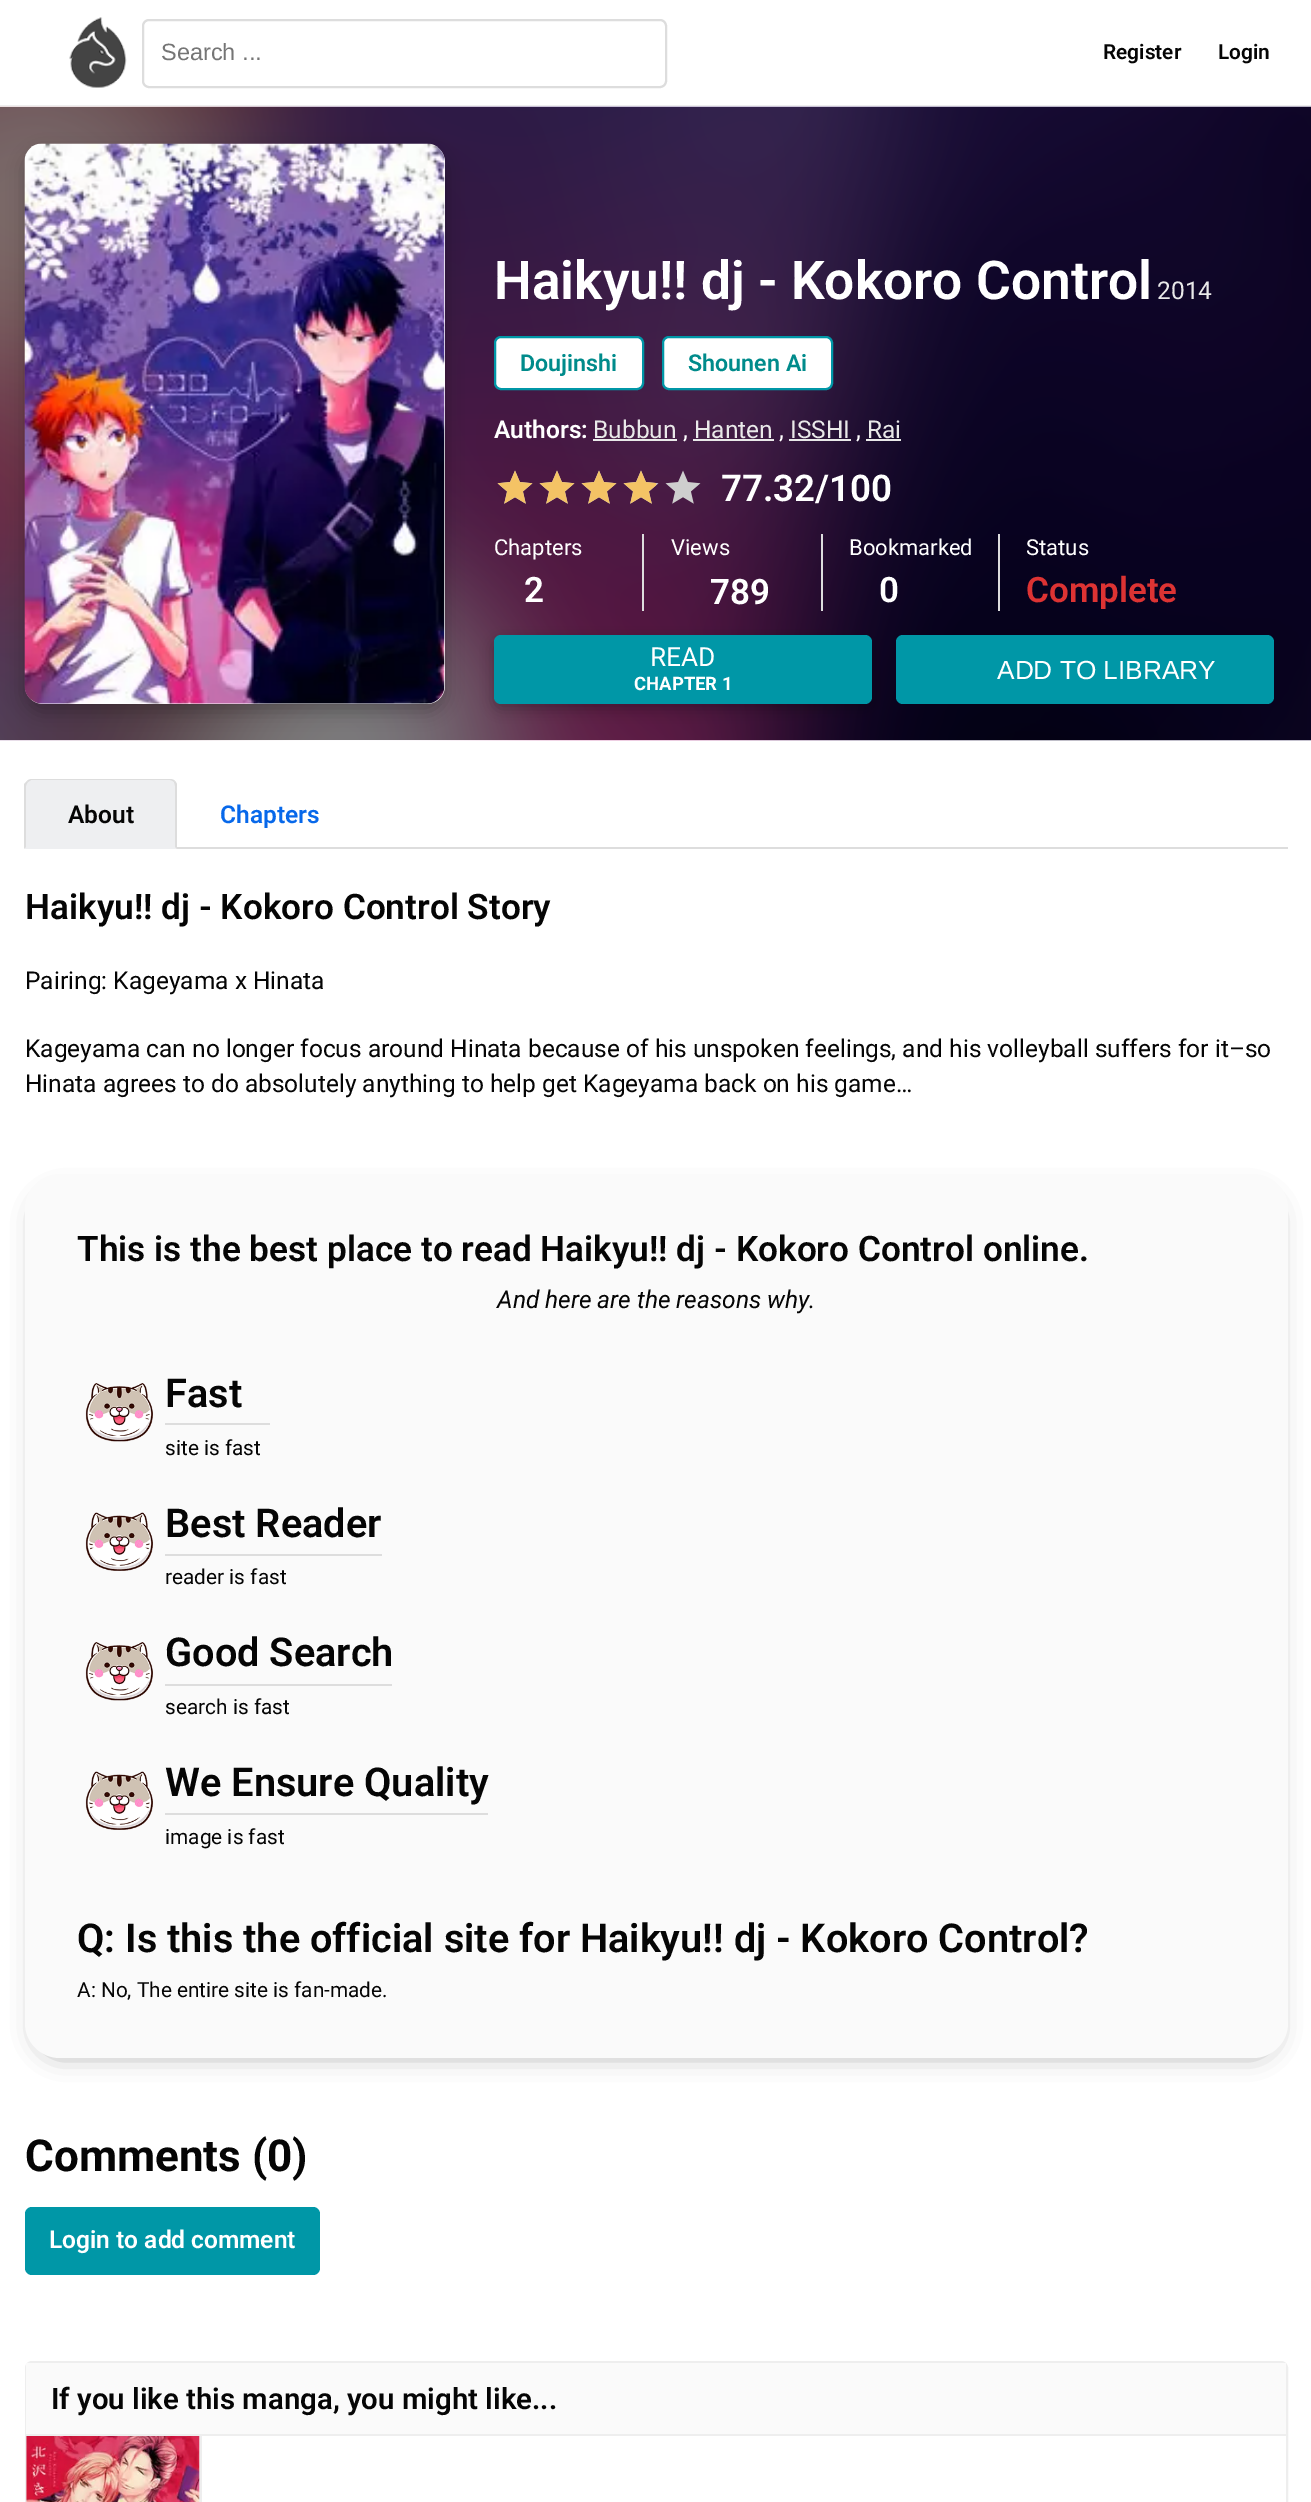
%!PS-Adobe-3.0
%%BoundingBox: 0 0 1311 2502
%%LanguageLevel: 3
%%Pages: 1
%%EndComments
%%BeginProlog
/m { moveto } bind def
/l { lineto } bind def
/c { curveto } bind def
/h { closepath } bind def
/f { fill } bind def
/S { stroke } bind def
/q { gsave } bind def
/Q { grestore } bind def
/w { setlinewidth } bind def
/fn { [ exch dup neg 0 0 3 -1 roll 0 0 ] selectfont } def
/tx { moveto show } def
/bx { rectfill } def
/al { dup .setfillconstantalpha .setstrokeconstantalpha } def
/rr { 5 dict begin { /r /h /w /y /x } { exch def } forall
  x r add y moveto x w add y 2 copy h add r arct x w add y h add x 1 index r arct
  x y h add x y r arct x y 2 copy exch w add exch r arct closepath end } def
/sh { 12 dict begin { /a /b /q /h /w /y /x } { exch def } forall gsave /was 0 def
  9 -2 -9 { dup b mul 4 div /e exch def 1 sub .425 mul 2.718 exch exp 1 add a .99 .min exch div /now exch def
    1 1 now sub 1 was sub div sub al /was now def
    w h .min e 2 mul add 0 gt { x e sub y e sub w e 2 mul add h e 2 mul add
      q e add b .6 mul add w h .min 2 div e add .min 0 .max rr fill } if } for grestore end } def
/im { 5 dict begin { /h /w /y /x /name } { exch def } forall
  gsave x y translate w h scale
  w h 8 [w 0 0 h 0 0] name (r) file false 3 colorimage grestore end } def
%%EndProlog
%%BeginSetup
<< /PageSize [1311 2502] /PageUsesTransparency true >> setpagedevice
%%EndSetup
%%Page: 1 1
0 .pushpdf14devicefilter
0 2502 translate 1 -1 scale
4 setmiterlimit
1 setgray
0 0 1311 2502 bx
0.933 setgray
0 105 1311 2 bx
(image0.raw) 69 17 58 71 im
0.867 setgray
2 w
143 20 523 67 6 rr S
/LiberationSans-Regular 23.5 fn
0.459 setgray
(Search ...) 161 60 tx
/Roboto-SemiBold 20.8 fn
0.02 setgray
(Register) 1103 59 tx
(Login) 1218 59 tx
(image1.raw) 0 106 1311 635 im
0 setgray
25 152 420 560 18 9 0.25 sh
1 setgray
25 144 420 560 18 rr f
(image2.raw) 24 143 421 561 im
/Roboto-SemiBold 53.4 fn
(Haikyu!! dj - Kokoro Control) 494 299 tx
/Roboto-Regular 24.5 fn
0.914 setgray
(2014) 1157 299 tx
1 setgray
495 337 148 52 6 rr q f Q
0 0.592 0.655 setrgbcolor
S
/Roboto-SemiBold 23.25 fn
0 0.545 0.545 setrgbcolor
(Doujinshi) 520 371 tx
1 setgray
663 337 169 52 6 rr q f Q
0 0.592 0.655 setrgbcolor
S
0 0.545 0.545 setrgbcolor
(Shounen Ai) 688 371 tx
/Roboto-SemiBold 24.5 fn
1 setgray
(Authors:) 494 438 tx
/Roboto-Regular 24.5 fn
0.914 setgray
(Bubbun) 593 438 tx
593 439 84 2 bx
1 setgray
(,) 683 438 tx
0.914 setgray
(Hanten) 694 438 tx
693 439 81 2 bx
1 setgray
(,) 779 438 tx
0.914 setgray
(ISSHI) 790 438 tx
789 439 62 2 bx
1 setgray
(,) 856 438 tx
0.914 setgray
(Rai) 867 438 tx
866 439 35 2 bx
(image3.raw) 497 470 204 34 im
(image4.raw) 497 470 160 34 im
/Roboto-SemiBold 36.75 fn
1 setgray
(77.32/100) 721 501 tx
0.867 setgray
642 534 2 77 bx
/Roboto-Regular 22 fn
1 setgray
(Chapters) 494 555 tx
/Roboto-SemiBold 35 fn
(2) 524 602 tx
0.867 setgray
821 534 2 77 bx
/Roboto-Regular 22 fn
1 setgray
(Views) 671 555 tx
/Roboto-SemiBold 35 fn
(789) 710 604 tx
0.867 setgray
998 534 2 77 bx
/Roboto-Regular 22 fn
1 setgray
(Bookmarked) 849 555 tx
/Roboto-SemiBold 35 fn
(0) 879 602 tx
/Roboto-Regular 22 fn
(Status) 1026 555 tx
/Roboto-SemiBold 35 fn
0.867 0.2 0.2 setrgbcolor
(Complete) 1026 602 tx
0 setgray
494 641 378 68 7 7 0.25 sh
0 0.592 0.655 setrgbcolor
494 635 378 69 7 rr f
/Roboto-Regular 26.25 fn
1 setgray
(READ) 650 666 tx
/Roboto-Bold 18.5 fn
(CHAPTER 1) 634 690 tx
0 0.592 0.655 setrgbcolor
896 635 378 69 7 rr f
/LiberationSans-Regular 26.25 fn
1 setgray
(ADD TO LIBRARY) 997 679 tx
0.867 setgray
177 847 1111 2 bx
0.933 0.937 0.945 setrgbcolor
32 779 m 170 779 l 174 779 177 782 177 786 c 177 849 l 25 849 l 25 786 l 25 782 28 779 32 779 c h f
0.867 setgray
32 779 m 30 779 28 780 27 781 c 28 782 l 31 780 l 170 780 l 171 780 173 781 174 782 c 175 781 l 174 780 172 779 170 779 c h f
175 781 m 177 784 l 177 849 l 175 847 l 175 786 l 175 784 174 783 174 782 c h f
24 849 m 26 847 l 26 786 l 26 785 27 783 28 782 c 27 781 l 24 784 l h f
/Roboto-SemiBold 24.5 fn
0.02 setgray
(About) 68 823 tx
0.027 0.408 0.918 setrgbcolor
(Chapters) 220 823 tx
/Roboto-SemiBold 35.2 fn
0.02 setgray
(Haikyu!! dj - Kokoro Control Story) 25 919 tx
/Roboto-Regular 24.5 fn
(Pairing: Kageyama x Hinata) 25 989 tx
(Kageyama can no longer focus around Hinata because of his unspoken feelings, and his volleyball suffers for it–so) 25 1057 tx
(Hinata agrees to do absolutely anything to help get Kageyama back on his game…) 25 1092 tx
0 setgray
39 1197 1235 856 21 13 0.4 sh
0.98 setgray
25 1174 1263 884 35 rr f
/Roboto-SemiBold 35.2 fn
0.02 setgray
(This is the best place to read Haikyu!! dj - Kokoro Control online.) 77 1261 tx
/Roboto-Italic 24.5 fn
(And here are the reasons why.) 497 1308 tx
(image5.raw) 85 1383 68 59 im
0.867 setgray
165 1423 105 2 bx
/Roboto-SemiBold 39.75 fn
0.02 setgray
(Fast) 165 1407 tx
/Roboto-Regular 20.8 fn
(site is fast) 165 1455 tx
(image6.raw) 85 1512 68 59 im
0.867 setgray
165 1554 217 2 bx
/Roboto-SemiBold 39.75 fn
0.02 setgray
(Best Reader) 165 1537 tx
/Roboto-Regular 20.8 fn
(reader is fast) 165 1584 tx
(image7.raw) 85 1642 68 59 im
0.867 setgray
165 1684 227 2 bx
/Roboto-SemiBold 39.75 fn
0.02 setgray
(Good Search) 165 1666 tx
/Roboto-Regular 20.8 fn
(search is fast) 165 1714 tx
(image8.raw) 85 1771 68 59 im
0.867 setgray
165 1813 323 2 bx
/Roboto-SemiBold 39.75 fn
0.02 setgray
(We Ensure Quality) 165 1796 tx
/Roboto-Regular 20.8 fn
(image is fast) 165 1844 tx
/Roboto-SemiBold 39.75 fn
(Q: Is this the official site for Haikyu!! dj - Kokoro Control?) 77 1952 tx
/Roboto-Regular 20.8 fn
(A: No, The entire site is fan-made.) 77 1997 tx
/Roboto-Bold 44 fn
(Comments \(0\)) 25 2171 tx
0 0.592 0.655 setrgbcolor
25 2207 295 68 7 rr f
/Roboto-SemiBold 24.5 fn
1 setgray
(Login to add comment) 49 2248 tx
0.933 setgray
26 2362 1261 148 6 rr S
0.98 setgray
26 2363 1260 71 bx
0.933 setgray
26 2434 1260 2 bx
/Roboto-SemiBold 29.4 fn
0.02 setgray
(If you like this manga, you might like...) 51 2409 tx
0.933 setgray
27 2436 175 66 bx
(image9.raw) 26 2436 174 66 im
.poppdf14devicefilter showpage
%%EOF
